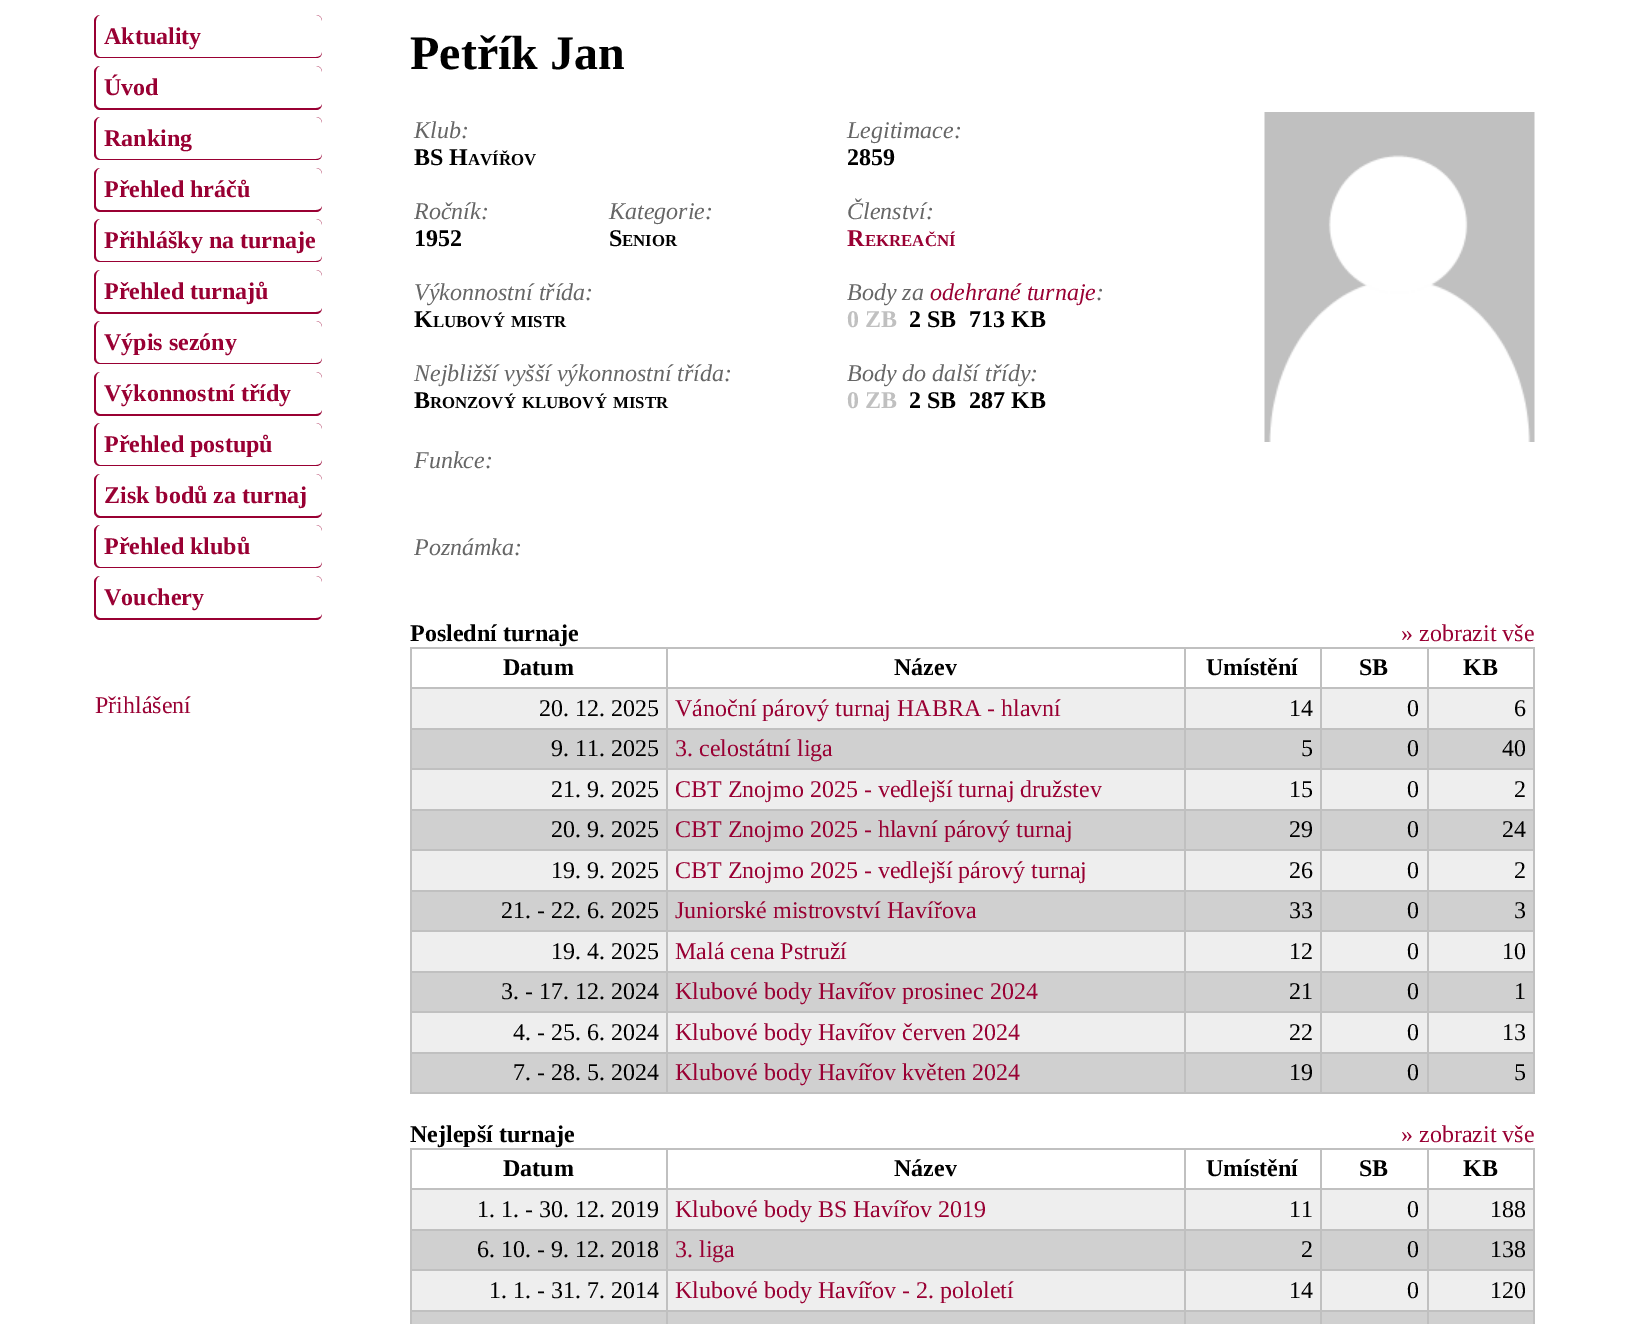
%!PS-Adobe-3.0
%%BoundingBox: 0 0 1629 1324
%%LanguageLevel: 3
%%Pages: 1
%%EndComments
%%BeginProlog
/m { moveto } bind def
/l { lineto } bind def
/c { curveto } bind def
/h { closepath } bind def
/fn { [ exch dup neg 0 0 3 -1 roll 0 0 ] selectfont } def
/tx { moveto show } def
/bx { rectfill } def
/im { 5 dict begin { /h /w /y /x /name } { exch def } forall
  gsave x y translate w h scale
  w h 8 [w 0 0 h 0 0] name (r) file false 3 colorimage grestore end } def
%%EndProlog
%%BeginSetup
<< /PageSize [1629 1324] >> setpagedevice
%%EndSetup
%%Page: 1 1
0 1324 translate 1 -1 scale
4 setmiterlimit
1 setgray
0 0 1629 1324 bx
0.6 0 0.2 setrgbcolor
100 15 m 316 15 l 320 15 322 18 322 21 c 322 52 l 322 56 320 58 316 58 c 100 58 l 97 58 94 56 94 52 c 94 21 l 94 18 97 15 100 15 c h 100 15 m 316 15 l 320 15 322 18 322 21 c 322 52 l 322 55 320 57 316 57 c 100 57 l 98 57 96 55 96 52 c 96 21 l 96 18 98 15 100 15 c h eofill
/LiberationSerif-Bold 24 fn
(Aktuality) 104 44 tx
100 66 m 316 66 l 320 66 322 69 322 72 c 322 104 l 322 107 320 110 316 110 c 100 110 l 97 110 94 107 94 104 c 94 72 l 94 69 97 66 100 66 c h 100 66 m 316 66 l 320 66 322 69 322 72 c 322 104 l 322 106 320 108 316 108 c 100 108 l 98 108 96 106 96 104 c 96 72 l 96 69 98 66 100 66 c h eofill
(Úvod) 104 95 tx
100 117 m 316 117 l 320 117 322 120 322 123 c 322 154 l 322 158 320 160 316 160 c 100 160 l 97 160 94 158 94 154 c 94 123 l 94 120 97 117 100 117 c h 100 117 m 316 117 l 320 117 322 120 322 123 c 322 154 l 322 157 320 159 316 159 c 100 159 l 98 159 96 157 96 154 c 96 123 l 96 120 98 117 100 117 c h eofill
(Ranking) 104 146 tx
100 168 m 316 168 l 320 168 322 171 322 174 c 322 206 l 322 209 320 212 316 212 c 100 212 l 97 212 94 209 94 206 c 94 174 l 94 171 97 168 100 168 c h 100 168 m 316 168 l 320 168 322 171 322 174 c 322 206 l 322 208 320 210 316 210 c 100 210 l 98 210 96 208 96 206 c 96 174 l 96 171 98 168 100 168 c h eofill
(Přehled hráčů) 104 197 tx
100 219 m 316 219 l 320 219 322 222 322 225 c 322 256 l 322 260 320 262 316 262 c 100 262 l 97 262 94 260 94 256 c 94 225 l 94 222 97 219 100 219 c h 100 219 m 316 219 l 320 219 322 222 322 225 c 322 256 l 322 259 320 261 316 261 c 100 261 l 98 261 96 259 96 256 c 96 225 l 96 222 98 219 100 219 c h eofill
(Přihlášky na turnaje) 104 248 tx
100 270 m 316 270 l 320 270 322 273 322 276 c 322 308 l 322 311 320 314 316 314 c 100 314 l 97 314 94 311 94 308 c 94 276 l 94 273 97 270 100 270 c h 100 270 m 316 270 l 320 270 322 273 322 276 c 322 308 l 322 310 320 312 316 312 c 100 312 l 98 312 96 310 96 308 c 96 276 l 96 273 98 270 100 270 c h eofill
(Přehled turnajů) 104 299 tx
100 321 m 316 321 l 320 321 322 324 322 327 c 322 358 l 322 362 320 364 316 364 c 100 364 l 97 364 94 362 94 358 c 94 327 l 94 324 97 321 100 321 c h 100 321 m 316 321 l 320 321 322 324 322 327 c 322 358 l 322 361 320 363 316 363 c 100 363 l 98 363 96 361 96 358 c 96 327 l 96 324 98 321 100 321 c h eofill
(Výpis sezóny) 104 350 tx
100 372 m 316 372 l 320 372 322 375 322 378 c 322 410 l 322 413 320 416 316 416 c 100 416 l 97 416 94 413 94 410 c 94 378 l 94 375 97 372 100 372 c h 100 372 m 316 372 l 320 372 322 375 322 378 c 322 410 l 322 412 320 414 316 414 c 100 414 l 98 414 96 412 96 410 c 96 378 l 96 375 98 372 100 372 c h eofill
(Výkonnostní třídy) 104 401 tx
100 423 m 316 423 l 320 423 322 426 322 429 c 322 460 l 322 464 320 466 316 466 c 100 466 l 97 466 94 464 94 460 c 94 429 l 94 426 97 423 100 423 c h 100 423 m 316 423 l 320 423 322 426 322 429 c 322 460 l 322 463 320 465 316 465 c 100 465 l 98 465 96 463 96 460 c 96 429 l 96 426 98 423 100 423 c h eofill
(Přehled postupů) 104 452 tx
100 474 m 316 474 l 320 474 322 477 322 480 c 322 512 l 322 515 320 518 316 518 c 100 518 l 97 518 94 515 94 512 c 94 480 l 94 477 97 474 100 474 c h 100 474 m 316 474 l 320 474 322 477 322 480 c 322 512 l 322 514 320 516 316 516 c 100 516 l 98 516 96 514 96 512 c 96 480 l 96 477 98 474 100 474 c h eofill
(Zisk bodů za turnaj) 104 503 tx
100 525 m 316 525 l 320 525 322 528 322 531 c 322 562 l 322 566 320 568 316 568 c 100 568 l 97 568 94 566 94 562 c 94 531 l 94 528 97 525 100 525 c h 100 525 m 316 525 l 320 525 322 528 322 531 c 322 562 l 322 565 320 567 316 567 c 100 567 l 98 567 96 565 96 562 c 96 531 l 96 528 98 525 100 525 c h eofill
(Přehled klubů) 104 554 tx
100 576 m 316 576 l 320 576 322 579 322 582 c 322 614 l 322 617 320 620 316 620 c 100 620 l 97 620 94 617 94 614 c 94 582 l 94 579 97 576 100 576 c h 100 576 m 316 576 l 320 576 322 579 322 582 c 322 614 l 322 616 320 618 316 618 c 100 618 l 98 618 96 616 96 614 c 96 582 l 96 579 98 576 100 576 c h eofill
(Vouchery) 104 605 tx
/LiberationSerif-Regular 24 fn
(Přihlášení) 95 713 tx
/LiberationSerif-Bold 48 fn
0 setgray
(Petřík Jan) 410 69 tx
/LiberationSerif-Italic 24 fn
0.4 setgray
(Klub:) 414 138 tx
/LiberationSerif-Bold 24 fn
0 setgray
(BS H) 414 165 tx
/LiberationSerif-Bold 16.75 fn
(AVÍŘOV) 468 165 tx
/LiberationSerif-Italic 24 fn
0.4 setgray
(Ročník:) 414 219 tx
/LiberationSerif-Bold 24 fn
0 setgray
(1952) 414 246 tx
/LiberationSerif-Italic 24 fn
0.4 setgray
(Kategorie:) 609 219 tx
/LiberationSerif-Bold 24 fn
0 setgray
(S) 609 246 tx
/LiberationSerif-Bold 16.75 fn
(ENIOR) 622 246 tx
/LiberationSerif-Italic 24 fn
0.4 setgray
(Výkonnostní třída:) 414 300 tx
/LiberationSerif-Bold 24 fn
0 setgray
(K) 414 327 tx
/LiberationSerif-Bold 16.75 fn
(LUBOVÝ) 433 327 tx
(MISTR) 511 327 tx
/LiberationSerif-Italic 24 fn
0.4 setgray
(Nejbližší vyšší výkonnostní třída:) 414 381 tx
/LiberationSerif-Bold 24 fn
0 setgray
(B) 414 408 tx
/LiberationSerif-Bold 16.75 fn
(RONZOVÝ) 430 408 tx
(KLUBOVÝ) 522 408 tx
(MISTR) 613 408 tx
/LiberationSerif-Italic 24 fn
0.4 setgray
(Legitimace:) 847 138 tx
/LiberationSerif-Bold 24 fn
0 setgray
(2859) 847 165 tx
/LiberationSerif-Italic 24 fn
0.4 setgray
(Členství:) 847 219 tx
/LiberationSerif-Bold 24 fn
0.6 0 0.2 setrgbcolor
(R) 847 246 tx
/LiberationSerif-Bold 16.75 fn
(EKREAČNÍ) 865 246 tx
/LiberationSerif-Italic 24 fn
0.4 setgray
(Body za) 847 300 tx
0.6 0 0.2 setrgbcolor
(odehrané turnaje) 930 300 tx
0.4 setgray
(:) 1096 300 tx
/LiberationSerif-Bold 24 fn
0.753 setgray
(0 ZB) 847 327 tx
0 setgray
(2 SB) 909 327 tx
(713 KB) 969 327 tx
/LiberationSerif-Italic 24 fn
0.4 setgray
(Body do další třídy:) 847 381 tx
/LiberationSerif-Bold 24 fn
0.753 setgray
(0 ZB) 847 408 tx
0 setgray
(2 SB) 909 408 tx
(287 KB) 969 408 tx
/LiberationSerif-Italic 24 fn
0.4 setgray
(Funkce:) 414 468 tx
(Poznámka:) 414 555 tx
(image0.raw) 1264 112 271 330 im
/LiberationSerif-Bold 24 fn
0 setgray
(Poslední turnaje) 410 641 tx
/LiberationSerif-Regular 24 fn
0.6 0 0.2 setrgbcolor
(» zobrazit vše) 1401 641 tx
0.753 setgray
410 647 1125 2 bx
1533 647 2 447 bx
410 1092 1125 2 bx
410 647 2 447 bx
/LiberationSerif-Bold 24 fn
0 setgray
(Datum) 503 675 tx
0.753 setgray
1427 687 108 2 bx
0.933 setgray
412 689 1121 39 bx
0.753 setgray
1427 728 108 2 bx
0.816 setgray
412 730 1121 38 bx
0.753 setgray
1427 768 108 2 bx
0.933 setgray
412 770 1121 39 bx
0.753 setgray
1427 809 108 2 bx
0.816 setgray
412 811 1121 38 bx
0.753 setgray
1427 849 108 2 bx
0.933 setgray
412 851 1121 39 bx
0.753 setgray
1427 890 108 2 bx
0.816 setgray
412 892 1121 38 bx
0.753 setgray
1427 930 108 2 bx
0.933 setgray
412 932 1121 39 bx
0.753 setgray
1427 971 108 2 bx
0.816 setgray
412 973 1121 38 bx
0.753 setgray
1427 1011 108 2 bx
0.933 setgray
412 1013 1121 39 bx
0.753 setgray
1427 1052 108 2 bx
0.816 setgray
412 1054 1121 38 bx
0.753 setgray
1427 1052 2 42 bx
1320 1052 108 2 bx
1427 1011 2 42 bx
1320 1011 108 2 bx
1427 971 2 42 bx
1320 971 108 2 bx
1427 930 2 42 bx
1320 930 108 2 bx
1427 890 2 42 bx
1320 890 108 2 bx
1427 849 2 42 bx
1320 849 108 2 bx
1427 809 2 42 bx
1320 809 108 2 bx
1427 768 2 42 bx
1320 768 108 2 bx
1427 728 2 42 bx
1320 728 108 2 bx
1427 687 2 42 bx
1320 687 108 2 bx
1320 1052 2 42 bx
1184 1052 138 2 bx
1320 1011 2 42 bx
1184 1011 138 2 bx
1320 971 2 42 bx
1184 971 138 2 bx
1320 930 2 42 bx
1184 930 138 2 bx
1320 890 2 42 bx
1184 890 138 2 bx
1320 849 2 42 bx
1184 849 138 2 bx
1320 809 2 42 bx
1184 809 138 2 bx
1320 768 2 42 bx
1184 768 138 2 bx
1320 728 2 42 bx
1184 728 138 2 bx
1320 687 2 42 bx
1184 687 138 2 bx
1184 1052 2 42 bx
666 1052 519 2 bx
1184 1011 2 42 bx
666 1011 519 2 bx
1184 971 2 42 bx
666 971 519 2 bx
1184 930 2 42 bx
666 930 519 2 bx
1184 890 2 42 bx
666 890 519 2 bx
1184 849 2 42 bx
666 849 519 2 bx
1184 809 2 42 bx
666 809 519 2 bx
1184 768 2 42 bx
666 768 519 2 bx
1184 728 2 42 bx
666 728 519 2 bx
1184 687 2 42 bx
666 687 519 2 bx
666 1052 2 42 bx
410 1052 258 2 bx
666 1011 2 42 bx
410 1011 258 2 bx
666 971 2 42 bx
410 971 258 2 bx
666 930 2 42 bx
410 930 258 2 bx
666 890 2 42 bx
410 890 258 2 bx
666 849 2 42 bx
410 849 258 2 bx
666 809 2 42 bx
410 809 258 2 bx
666 768 2 42 bx
410 768 258 2 bx
666 728 2 42 bx
410 728 258 2 bx
666 687 2 42 bx
410 687 258 2 bx
666 647 2 42 bx
0 setgray
(Název) 894 675 tx
0.753 setgray
1184 647 2 42 bx
0 setgray
(Umístění) 1206 675 tx
0.753 setgray
1320 647 2 42 bx
0 setgray
(SB) 1359 675 tx
0.753 setgray
1427 647 2 42 bx
0 setgray
(KB) 1463 675 tx
/LiberationSerif-Regular 24 fn
(20. 12. 2025) 539 716 tx
0.6 0 0.2 setrgbcolor
(Vánoční párový turnaj HABRA - hlavní) 675 716 tx
0 setgray
(14) 1289 716 tx
(0) 1407 716 tx
(6) 1514 716 tx
(9. 11. 2025) 551 756 tx
0.6 0 0.2 setrgbcolor
(3. celostátní liga) 675 756 tx
0 setgray
(5) 1301 756 tx
(0) 1407 756 tx
(40) 1502 756 tx
(21. 9. 2025) 551 797 tx
0.6 0 0.2 setrgbcolor
(CBT Znojmo 2025 - vedlejší turnaj družstev) 675 797 tx
0 setgray
(15) 1289 797 tx
(0) 1407 797 tx
(2) 1514 797 tx
(20. 9. 2025) 551 837 tx
0.6 0 0.2 setrgbcolor
(CBT Znojmo 2025 - hlavní párový turnaj) 675 837 tx
0 setgray
(29) 1289 837 tx
(0) 1407 837 tx
(24) 1502 837 tx
(19. 9. 2025) 551 878 tx
0.6 0 0.2 setrgbcolor
(CBT Znojmo 2025 - vedlejší párový turnaj) 675 878 tx
0 setgray
(26) 1289 878 tx
(0) 1407 878 tx
(2) 1514 878 tx
(21. - 22. 6. 2025) 501 918 tx
0.6 0 0.2 setrgbcolor
(Juniorské mistrovství Havířova) 675 918 tx
0 setgray
(33) 1289 918 tx
(0) 1407 918 tx
(3) 1514 918 tx
(19. 4. 2025) 551 959 tx
0.6 0 0.2 setrgbcolor
(Malá cena Pstruží) 675 959 tx
0 setgray
(12) 1289 959 tx
(0) 1407 959 tx
(10) 1502 959 tx
(3. - 17. 12. 2024) 501 999 tx
0.6 0 0.2 setrgbcolor
(Klubové body Havířov prosinec 2024) 675 999 tx
0 setgray
(21) 1289 999 tx
(0) 1407 999 tx
(1) 1514 999 tx
(4. - 25. 6. 2024) 513 1040 tx
0.6 0 0.2 setrgbcolor
(Klubové body Havířov červen 2024) 675 1040 tx
0 setgray
(22) 1289 1040 tx
(0) 1407 1040 tx
(13) 1502 1040 tx
(7. - 28. 5. 2024) 513 1080 tx
0.6 0 0.2 setrgbcolor
(Klubové body Havířov květen 2024) 675 1080 tx
0 setgray
(19) 1289 1080 tx
(0) 1407 1080 tx
(5) 1514 1080 tx
/LiberationSerif-Bold 24 fn
(Nejlepší turnaje) 410 1142 tx
/LiberationSerif-Regular 24 fn
0.6 0 0.2 setrgbcolor
(» zobrazit vše) 1401 1142 tx
0.753 setgray
410 1148 1125 2 bx
1533 1148 2 176 bx
410 1148 2 176 bx
/LiberationSerif-Bold 24 fn
0 setgray
(Datum) 503 1176 tx
0.753 setgray
1427 1188 108 2 bx
0.933 setgray
412 1190 1121 39 bx
0.753 setgray
1427 1229 108 2 bx
0.816 setgray
412 1231 1121 38 bx
0.753 setgray
1427 1269 108 2 bx
0.933 setgray
412 1271 1121 39 bx
0.753 setgray
1427 1310 108 2 bx
0.816 setgray
412 1312 1121 12 bx
0.753 setgray
1427 1310 2 14 bx
1320 1310 108 2 bx
1427 1269 2 42 bx
1320 1269 108 2 bx
1427 1229 2 42 bx
1320 1229 108 2 bx
1427 1188 2 42 bx
1320 1188 108 2 bx
1320 1310 2 14 bx
1184 1310 138 2 bx
1320 1269 2 42 bx
1184 1269 138 2 bx
1320 1229 2 42 bx
1184 1229 138 2 bx
1320 1188 2 42 bx
1184 1188 138 2 bx
1184 1310 2 14 bx
666 1310 519 2 bx
1184 1269 2 42 bx
666 1269 519 2 bx
1184 1229 2 42 bx
666 1229 519 2 bx
1184 1188 2 42 bx
666 1188 519 2 bx
666 1310 2 14 bx
410 1310 258 2 bx
666 1269 2 42 bx
410 1269 258 2 bx
666 1229 2 42 bx
410 1229 258 2 bx
666 1188 2 42 bx
410 1188 258 2 bx
666 1148 2 42 bx
0 setgray
(Název) 894 1176 tx
0.753 setgray
1184 1148 2 42 bx
0 setgray
(Umístění) 1206 1176 tx
0.753 setgray
1320 1148 2 42 bx
0 setgray
(SB) 1359 1176 tx
0.753 setgray
1427 1148 2 42 bx
0 setgray
(KB) 1463 1176 tx
/LiberationSerif-Regular 24 fn
(1. 1. - 30. 12. 2019) 477 1217 tx
0.6 0 0.2 setrgbcolor
(Klubové body BS Havířov 2019) 675 1217 tx
0 setgray
(11) 1289 1217 tx
(0) 1407 1217 tx
(188) 1490 1217 tx
(6. 10. - 9. 12. 2018) 477 1257 tx
0.6 0 0.2 setrgbcolor
(3. liga) 675 1257 tx
0 setgray
(2) 1301 1257 tx
(0) 1407 1257 tx
(138) 1490 1257 tx
(1. 1. - 31. 7. 2014) 489 1298 tx
0.6 0 0.2 setrgbcolor
(Klubové body Havířov - 2. pololetí) 675 1298 tx
0 setgray
(14) 1289 1298 tx
(0) 1407 1298 tx
(120) 1490 1298 tx
showpage
%%EOF
